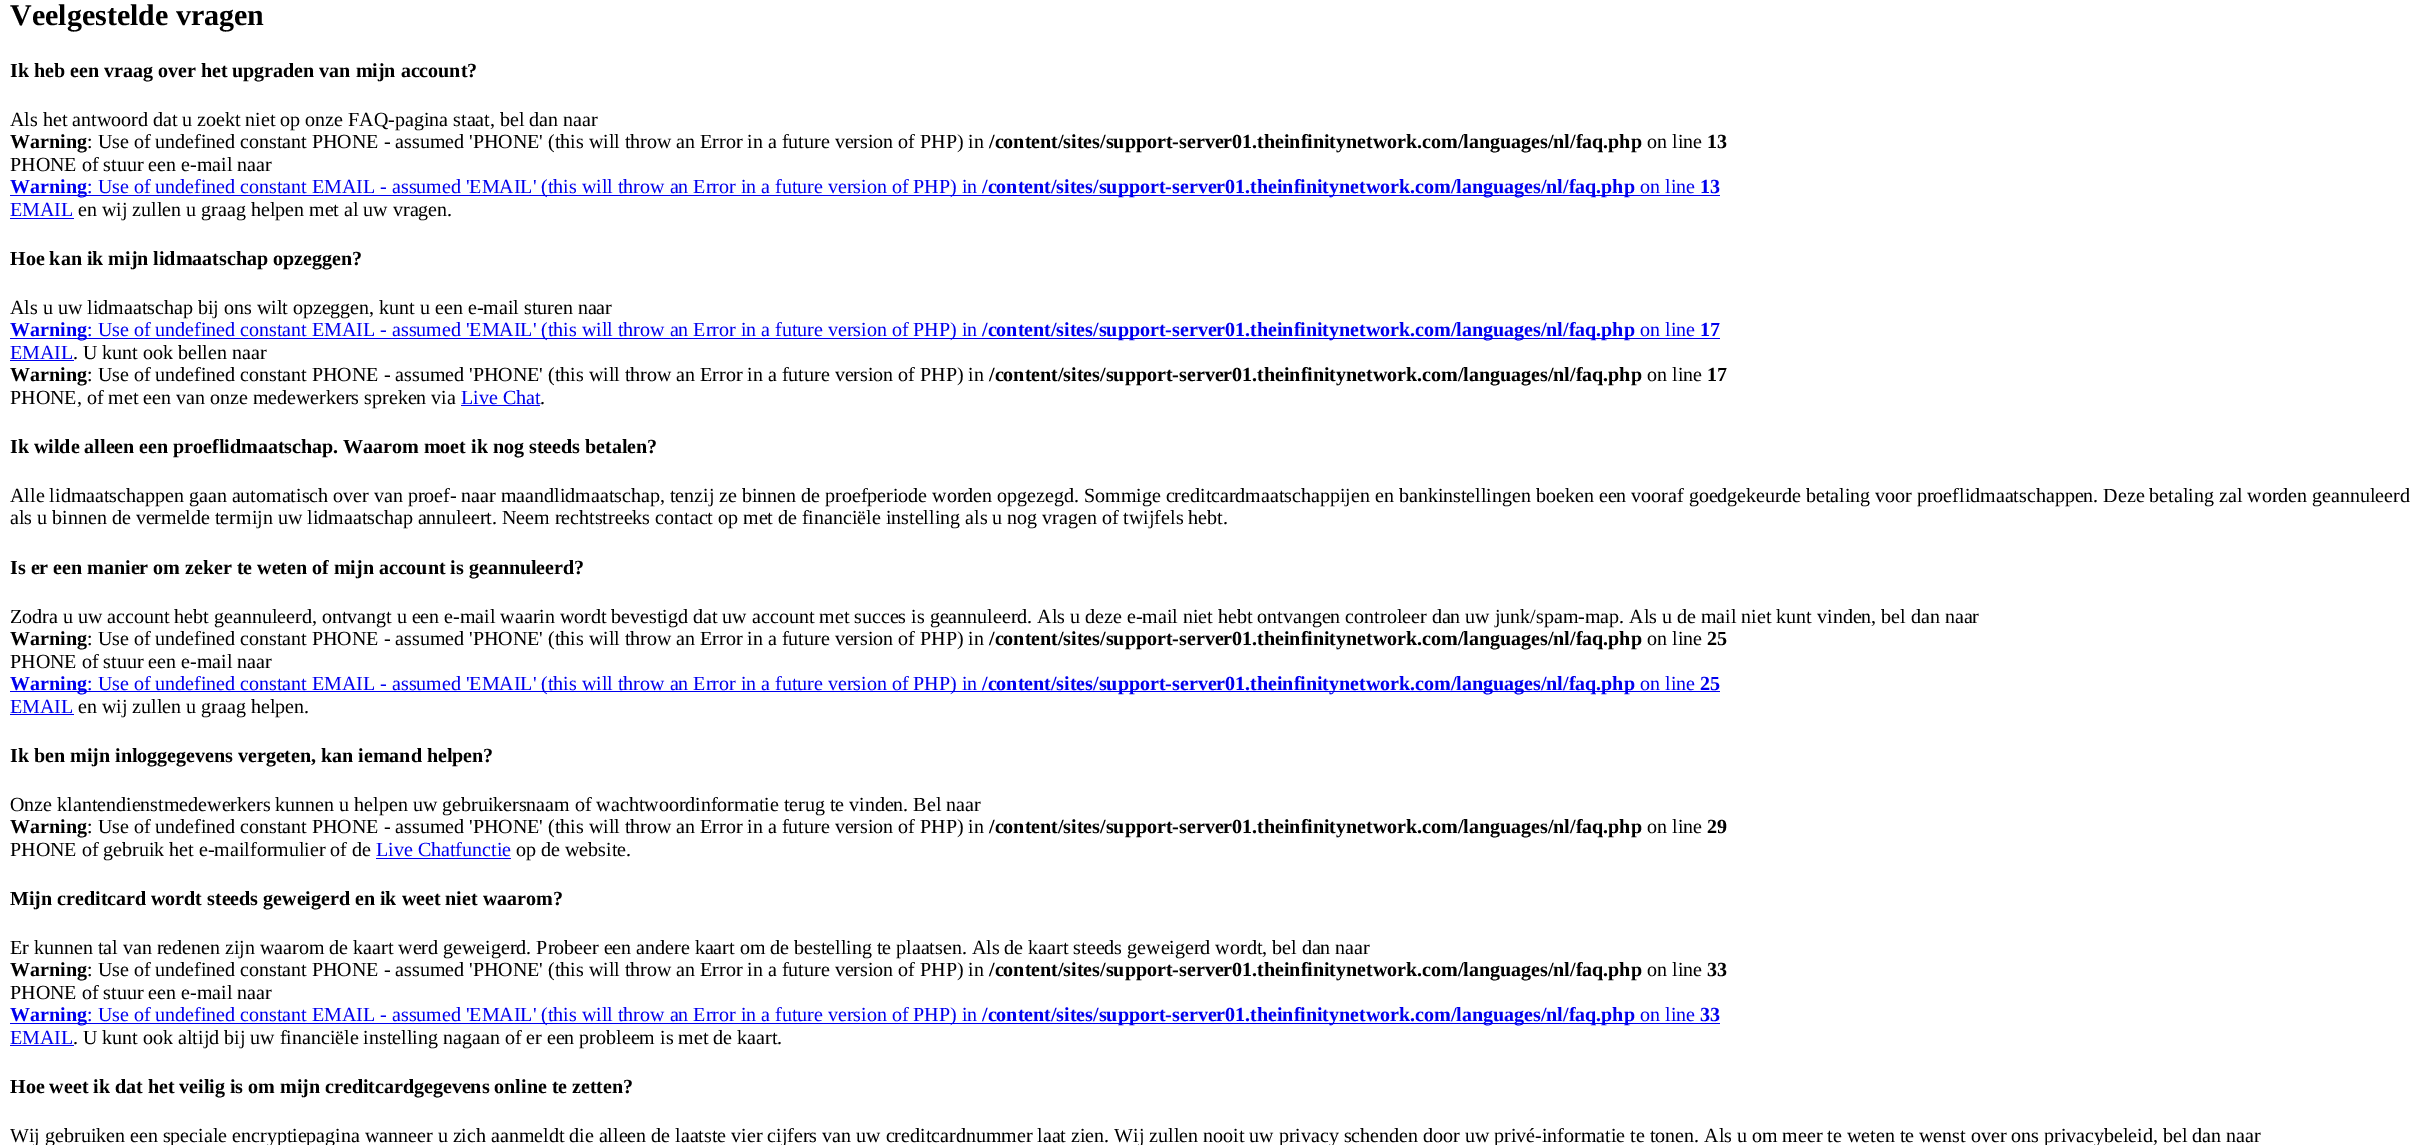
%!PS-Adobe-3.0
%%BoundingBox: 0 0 2431 1145
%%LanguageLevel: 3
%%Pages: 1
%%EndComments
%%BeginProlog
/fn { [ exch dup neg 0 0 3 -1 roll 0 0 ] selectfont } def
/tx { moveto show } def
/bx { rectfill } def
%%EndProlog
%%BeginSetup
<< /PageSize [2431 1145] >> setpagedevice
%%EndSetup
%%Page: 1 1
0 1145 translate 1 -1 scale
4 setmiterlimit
1 setgray
0 0 2431 1145 bx
/LiberationSerif-Bold 30 fn
0 setgray
(Veelgestelde vragen) 10 25 tx
/LiberationSerif-Bold 20 fn
(Ik heb een vraag over het upgraden van mijn account?) 10 77 tx
/LiberationSerif-Regular 20 fn
(Als het antwoord dat u zoekt niet op onze FAQ-pagina staat, bel dan naar) 10 126 tx
/LiberationSerif-Bold 20 fn
(Warning) 10 148 tx
/LiberationSerif-Regular 20 fn
(: Use of undefined constant PHONE - assumed 'PHONE' \(this will throw an Error in a future version of PHP\) in) 87 148 tx
/LiberationSerif-Bold 20 fn
(/content/sites/support-server01.theinfinitynetwork.com/languages/nl/faq.php) 989 148 tx
/LiberationSerif-Regular 20 fn
(on line) 1647 148 tx
/LiberationSerif-Bold 20 fn
(13) 1707 148 tx
/LiberationSerif-Regular 20 fn
(PHONE of stuur een e-mail naar) 10 171 tx
0 0 0.933 setrgbcolor
10 195 76 1 bx
/LiberationSerif-Bold 20 fn
(Warning) 10 193 tx
86 195 1634 1 bx
/LiberationSerif-Regular 20 fn
(: Use of undefined constant EMAIL - assumed 'EMAIL' \(this will throw an Error in a future version of PHP\) in) 87 193 tx
/LiberationSerif-Bold 20 fn
(/content/sites/support-server01.theinfinitynetwork.com/languages/nl/faq.php) 982 193 tx
/LiberationSerif-Regular 20 fn
(on line) 1640 193 tx
/LiberationSerif-Bold 20 fn
(13) 1700 193 tx
/LiberationSerif-Regular 20 fn
(EMAIL) 10 216 tx
10 218 64 1 bx
0 setgray
(en wij zullen u graag helpen met al uw vragen.) 78 216 tx
/LiberationSerif-Bold 20 fn
(Hoe kan ik mijn lidmaatschap opzeggen?) 10 265 tx
/LiberationSerif-Regular 20 fn
(Als u uw lidmaatschap bij ons wilt opzeggen, kunt u een e-mail sturen naar) 10 314 tx
0 0 0.933 setrgbcolor
10 338 76 1 bx
/LiberationSerif-Bold 20 fn
(Warning) 10 336 tx
86 338 1634 1 bx
/LiberationSerif-Regular 20 fn
(: Use of undefined constant EMAIL - assumed 'EMAIL' \(this will throw an Error in a future version of PHP\) in) 87 336 tx
/LiberationSerif-Bold 20 fn
(/content/sites/support-server01.theinfinitynetwork.com/languages/nl/faq.php) 982 336 tx
/LiberationSerif-Regular 20 fn
(on line) 1640 336 tx
/LiberationSerif-Bold 20 fn
(17) 1700 336 tx
/LiberationSerif-Regular 20 fn
(EMAIL) 10 359 tx
0 setgray
(. U kunt ook bellen naar) 73 359 tx
0 0 0.933 setrgbcolor
10 360 64 1 bx
/LiberationSerif-Bold 20 fn
0 setgray
(Warning) 10 381 tx
/LiberationSerif-Regular 20 fn
(: Use of undefined constant PHONE - assumed 'PHONE' \(this will throw an Error in a future version of PHP\) in) 87 381 tx
/LiberationSerif-Bold 20 fn
(/content/sites/support-server01.theinfinitynetwork.com/languages/nl/faq.php) 989 381 tx
/LiberationSerif-Regular 20 fn
(on line) 1647 381 tx
/LiberationSerif-Bold 20 fn
(17) 1707 381 tx
/LiberationSerif-Regular 20 fn
(PHONE, of met een van onze medewerkers spreken via) 10 404 tx
0 0 0.933 setrgbcolor
(Live Chat) 461 404 tx
0 setgray
(.) 540 404 tx
0 0 0.933 setrgbcolor
461 405 79 1 bx
/LiberationSerif-Bold 20 fn
0 setgray
(Ik wilde alleen een proeflidmaatschap. Waarom moet ik nog steeds betalen?) 10 453 tx
/LiberationSerif-Regular 20 fn
(Alle lidmaatschappen gaan automatisch over van proef- naar maandlidmaatschap, tenzij ze binnen de proefperiode worden opgezegd. Sommige creditcardmaatschappijen en bankinstellingen boeken een vooraf goedgekeurde betaling voor proeflidmaatschappen. Deze betaling zal worden geannuleerd) 10 502 tx
(als u binnen de vermelde termijn uw lidmaatschap annuleert. Neem rechtstreeks contact op met de financiële instelling als u nog vragen of twijfels hebt.) 10 524 tx
/LiberationSerif-Bold 20 fn
(Is er een manier om zeker te weten of mijn account is geannuleerd?) 10 574 tx
/LiberationSerif-Regular 20 fn
(Zodra u uw account hebt geannuleerd, ontvangt u een e-mail waarin wordt bevestigd dat uw account met succes is geannuleerd. Als u deze e-mail niet hebt ontvangen controleer dan uw junk/spam-map. Als u de mail niet kunt vinden, bel dan naar) 10 623 tx
/LiberationSerif-Bold 20 fn
(Warning) 10 645 tx
/LiberationSerif-Regular 20 fn
(: Use of undefined constant PHONE - assumed 'PHONE' \(this will throw an Error in a future version of PHP\) in) 87 645 tx
/LiberationSerif-Bold 20 fn
(/content/sites/support-server01.theinfinitynetwork.com/languages/nl/faq.php) 989 645 tx
/LiberationSerif-Regular 20 fn
(on line) 1647 645 tx
/LiberationSerif-Bold 20 fn
(25) 1707 645 tx
/LiberationSerif-Regular 20 fn
(PHONE of stuur een e-mail naar) 10 668 tx
0 0 0.933 setrgbcolor
10 691 76 1 bx
/LiberationSerif-Bold 20 fn
(Warning) 10 690 tx
86 691 1634 1 bx
/LiberationSerif-Regular 20 fn
(: Use of undefined constant EMAIL - assumed 'EMAIL' \(this will throw an Error in a future version of PHP\) in) 87 690 tx
/LiberationSerif-Bold 20 fn
(/content/sites/support-server01.theinfinitynetwork.com/languages/nl/faq.php) 982 690 tx
/LiberationSerif-Regular 20 fn
(on line) 1640 690 tx
/LiberationSerif-Bold 20 fn
(25) 1700 690 tx
/LiberationSerif-Regular 20 fn
(EMAIL) 10 713 tx
10 714 64 1 bx
0 setgray
(en wij zullen u graag helpen.) 78 713 tx
/LiberationSerif-Bold 20 fn
(Ik ben mijn inloggegevens vergeten, kan iemand helpen?) 10 762 tx
/LiberationSerif-Regular 20 fn
(Onze klantendienstmedewerkers kunnen u helpen uw gebruikersnaam of wachtwoordinformatie terug te vinden. Bel naar) 10 811 tx
/LiberationSerif-Bold 20 fn
(Warning) 10 833 tx
/LiberationSerif-Regular 20 fn
(: Use of undefined constant PHONE - assumed 'PHONE' \(this will throw an Error in a future version of PHP\) in) 87 833 tx
/LiberationSerif-Bold 20 fn
(/content/sites/support-server01.theinfinitynetwork.com/languages/nl/faq.php) 989 833 tx
/LiberationSerif-Regular 20 fn
(on line) 1647 833 tx
/LiberationSerif-Bold 20 fn
(29) 1707 833 tx
/LiberationSerif-Regular 20 fn
(PHONE of gebruik het e-mailformulier of de) 10 856 tx
0 0 0.933 setrgbcolor
(Live Chatfunctie) 376 856 tx
376 858 135 1 bx
0 setgray
(op de website.) 516 856 tx
/LiberationSerif-Bold 20 fn
(Mijn creditcard wordt steeds geweigerd en ik weet niet waarom?) 10 905 tx
/LiberationSerif-Regular 20 fn
(Er kunnen tal van redenen zijn waarom de kaart werd geweigerd. Probeer een andere kaart om de bestelling te plaatsen. Als de kaart steeds geweigerd wordt, bel dan naar) 10 954 tx
/LiberationSerif-Bold 20 fn
(Warning) 10 976 tx
/LiberationSerif-Regular 20 fn
(: Use of undefined constant PHONE - assumed 'PHONE' \(this will throw an Error in a future version of PHP\) in) 87 976 tx
/LiberationSerif-Bold 20 fn
(/content/sites/support-server01.theinfinitynetwork.com/languages/nl/faq.php) 989 976 tx
/LiberationSerif-Regular 20 fn
(on line) 1647 976 tx
/LiberationSerif-Bold 20 fn
(33) 1707 976 tx
/LiberationSerif-Regular 20 fn
(PHONE of stuur een e-mail naar) 10 999 tx
0 0 0.933 setrgbcolor
10 1023 76 1 bx
/LiberationSerif-Bold 20 fn
(Warning) 10 1021 tx
86 1023 1634 1 bx
/LiberationSerif-Regular 20 fn
(: Use of undefined constant EMAIL - assumed 'EMAIL' \(this will throw an Error in a future version of PHP\) in) 87 1021 tx
/LiberationSerif-Bold 20 fn
(/content/sites/support-server01.theinfinitynetwork.com/languages/nl/faq.php) 982 1021 tx
/LiberationSerif-Regular 20 fn
(on line) 1640 1021 tx
/LiberationSerif-Bold 20 fn
(33) 1700 1021 tx
/LiberationSerif-Regular 20 fn
(EMAIL) 10 1044 tx
0 setgray
(. U kunt ook altijd bij uw financiële instelling nagaan of er een probleem is met de kaart.) 73 1044 tx
0 0 0.933 setrgbcolor
10 1045 64 1 bx
/LiberationSerif-Bold 20 fn
0 setgray
(Hoe weet ik dat het veilig is om mijn creditcardgegevens online te zetten?) 10 1093 tx
/LiberationSerif-Regular 20 fn
(Wij gebruiken een speciale encryptiepagina wanneer u zich aanmeldt die alleen de laatste vier cijfers van uw creditcardnummer laat zien. Wij zullen nooit uw privacy schenden door uw privé-informatie te tonen. Als u om meer te weten te wenst over ons privacybeleid, bel dan naar) 10 1142 tx
showpage
%%EOF
